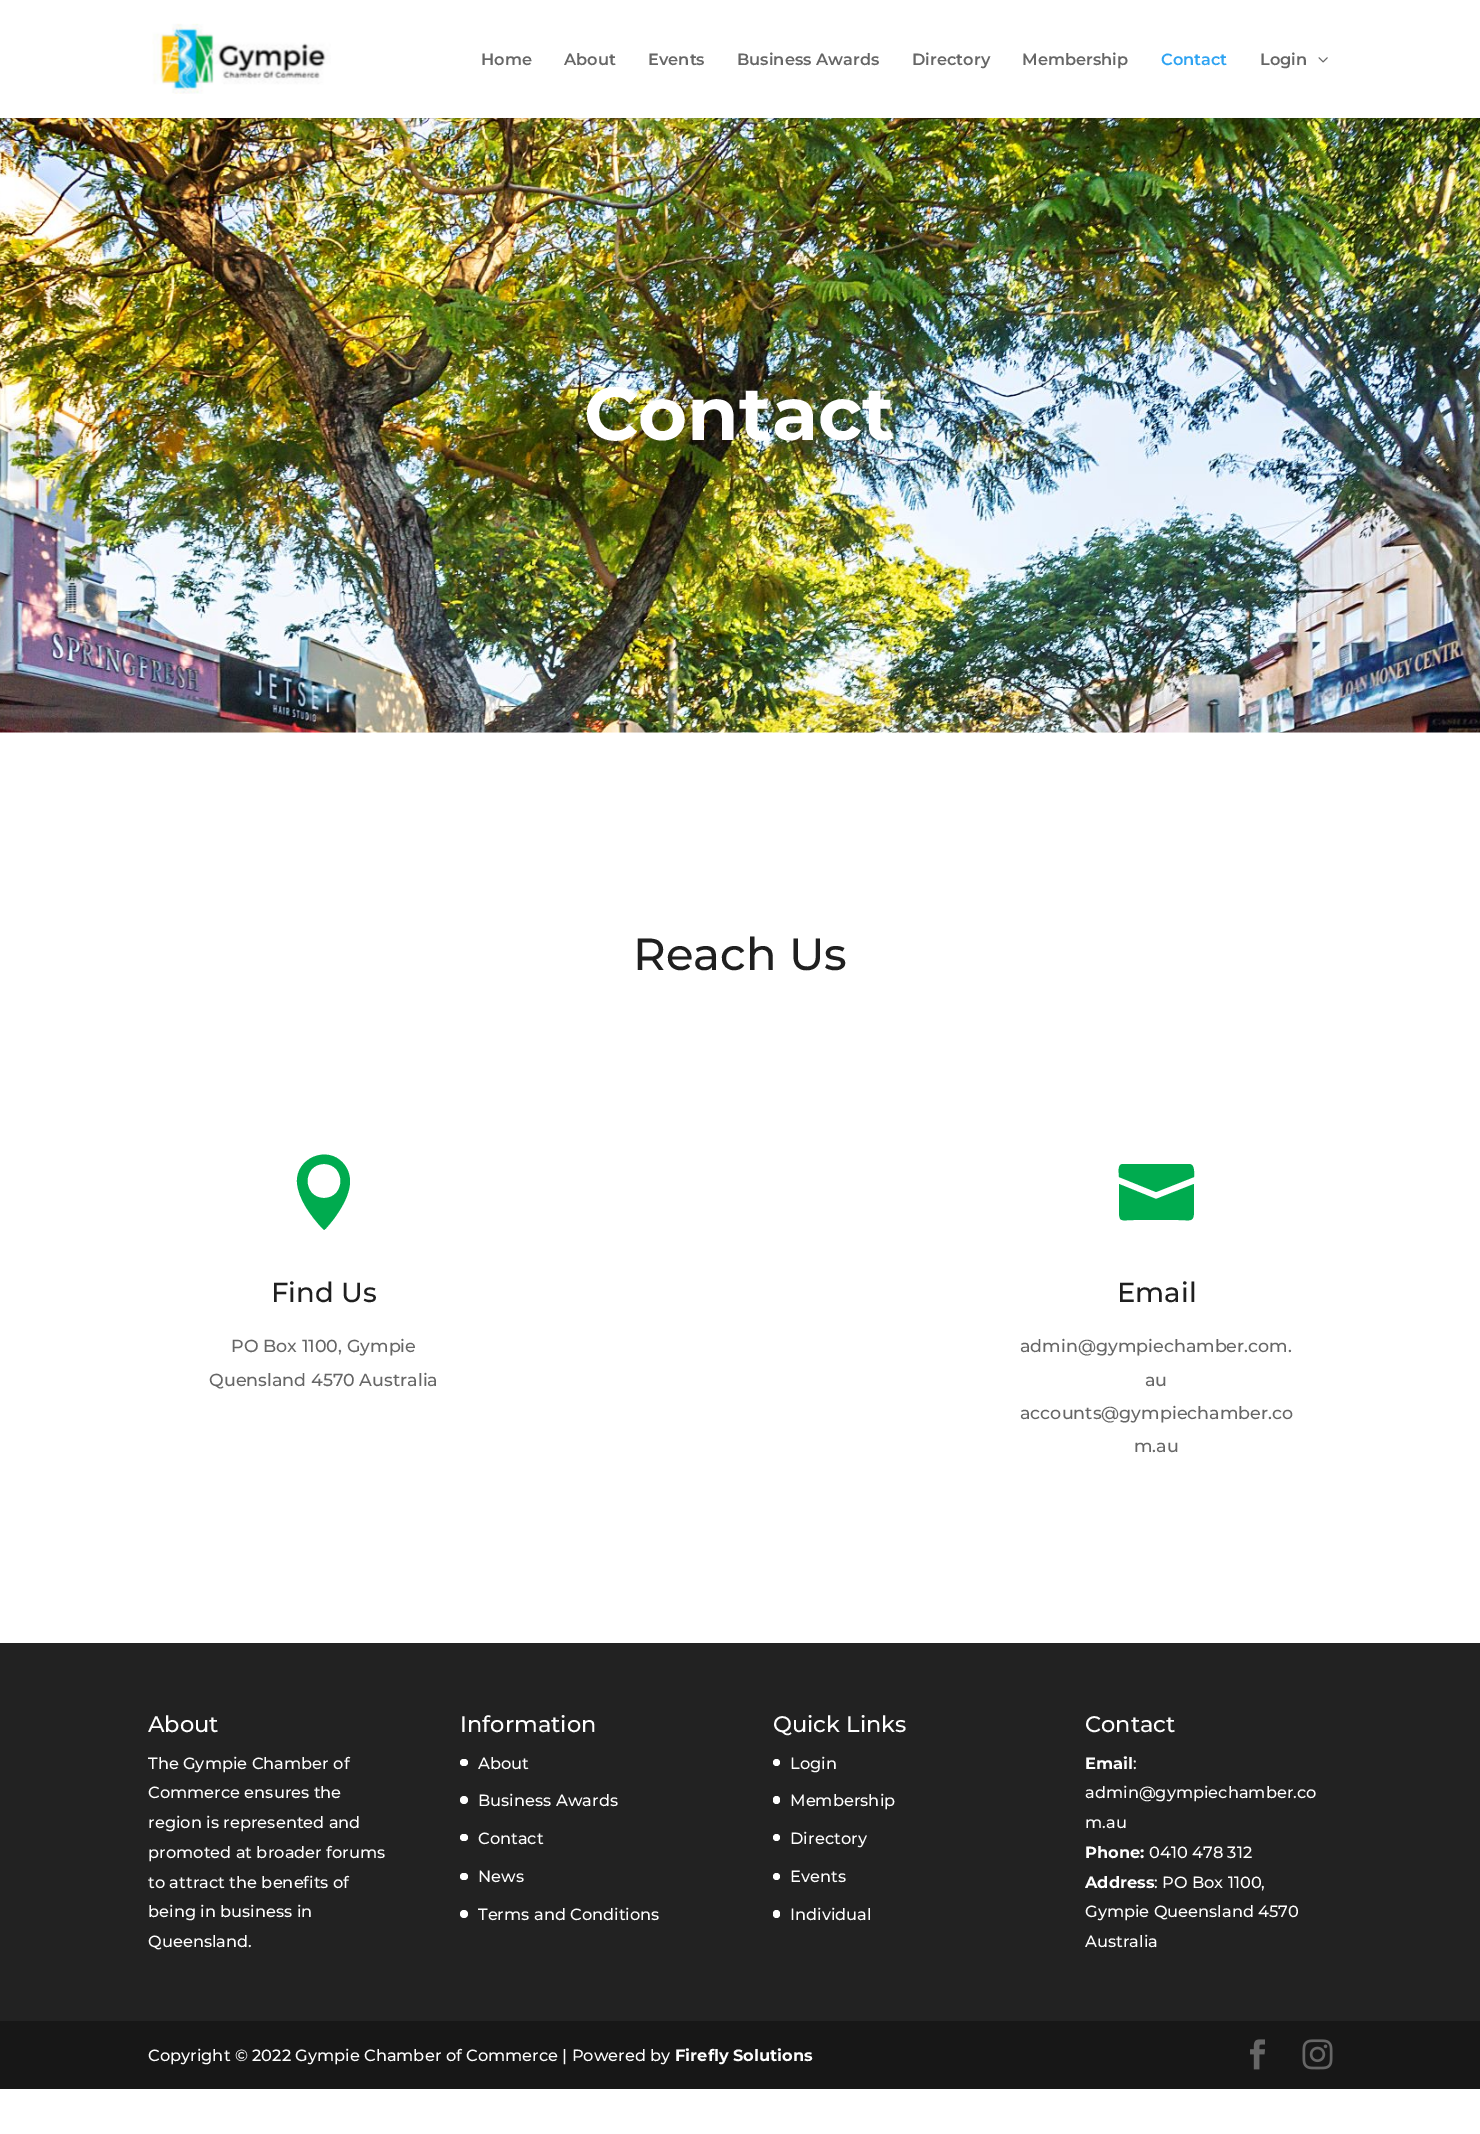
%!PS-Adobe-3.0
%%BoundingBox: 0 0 1480 2134
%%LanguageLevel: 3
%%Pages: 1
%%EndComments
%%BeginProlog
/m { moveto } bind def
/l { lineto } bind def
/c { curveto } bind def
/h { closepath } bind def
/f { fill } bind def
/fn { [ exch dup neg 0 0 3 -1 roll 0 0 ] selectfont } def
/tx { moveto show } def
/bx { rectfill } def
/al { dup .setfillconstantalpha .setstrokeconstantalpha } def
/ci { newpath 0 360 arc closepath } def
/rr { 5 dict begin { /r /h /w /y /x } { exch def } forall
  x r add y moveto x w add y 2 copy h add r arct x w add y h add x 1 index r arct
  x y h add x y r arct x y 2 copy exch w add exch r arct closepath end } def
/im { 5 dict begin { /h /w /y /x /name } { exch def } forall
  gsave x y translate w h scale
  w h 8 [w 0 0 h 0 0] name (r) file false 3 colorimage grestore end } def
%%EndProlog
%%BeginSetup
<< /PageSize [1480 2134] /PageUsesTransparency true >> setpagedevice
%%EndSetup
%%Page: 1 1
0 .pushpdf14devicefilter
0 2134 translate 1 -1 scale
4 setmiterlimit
1 setgray
0 0 1480 2134 bx
(image2.raw) 0 118 1480 615 im
0.1 al
0 setgray
0 118 1480 1 bx
1 al
(image0.raw) 152 23 179 71 im
/Montserrat-SemiBold 16.25 fn
0.4 setgray
(Home) 481 65 tx
(About) 564 65 tx
(Events) 648 65 tx
(Business Awards) 737 65 tx
(Directory) 912 65 tx
(Membership) 1022 65 tx
0.18 0.639 0.949 setrgbcolor
(Contact) 1161 65 tx
0.4 setgray
(Login) 1260 65 tx
(image1.raw) 1318 57 10 6 im
/Montserrat-Bold 75 fn
1 setgray
(Contact) 584 440 tx
/Montserrat-Medium 45 fn
0.122 setgray
(Reach Us) 633 970 tx
0 0.671 0.31 setrgbcolor
322 1228 m 324 1230 l 326 1229 332 1221 333 1220 c 344 1205 359 1181 343 1163 c 327 1145 296 1158 297 1182 c 298 1199 311 1216 322 1228 c h 324 1164 m 346 1164 346 1198 324 1198 c 302 1198 302 1164 324 1164 c h f
/Montserrat-Medium 27.5 fn
0.122 setgray
(Find Us) 271 1302 tx
/Montserrat-Medium 17.5 fn
0.4 setgray
(PO Box 1100, Gympie) 231 1352 tx
(Quensland 4570 Australia) 209 1386 tx
0 0.671 0.31 setrgbcolor
1189 1164 m 1123 1164 l 1117 1164 1119 1173 1119 1177 c 1156 1192 l 1194 1177 l 1194 1173 1195 1164 1189 1164 c h 1119 1184 m 1119 1210 l 1119 1223 1121 1220 1134 1220 c 1178 1220 l 1191 1220 1194 1223 1194 1210 c 1194 1184 l 1156 1199 l h f
/Montserrat-Medium 27.5 fn
0.122 setgray
(Email) 1117 1302 tx
/Montserrat-Medium 17.5 fn
0.4 setgray
(admin@gympiechamber.com.) 1020 1352 tx
(au) 1145 1386 tx
(accounts@gympiechamber.co) 1020 1419 tx
(m.au) 1134 1452 tx
0.133 setgray
0 1643 1480 378 bx
/Montserrat-Medium 22.5 fn
1 setgray
(About) 148 1732 tx
/Montserrat-Medium 16.25 fn
(The Gympie Chamber of) 148 1769 tx
(Commerce ensures the) 148 1798 tx
(region is represented and) 148 1828 tx
(promoted at broader forums) 148 1858 tx
(to attract the benefits of) 148 1888 tx
(being in business in) 148 1917 tx
(Queensland.) 148 1947 tx
/Montserrat-Medium 22.5 fn
(Information) 460 1732 tx
460 1759 8 7 3.5 rr f
/Montserrat-Medium 16.25 fn
(About) 478 1769 tx
464 1800 4 ci f
(Business Awards) 478 1806 tx
460 1834 8 7 3.5 rr f
(Contact) 478 1844 tx
460 1873 8 7 3.5 rr f
(News) 478 1882 tx
464 1914 4 ci f
(Terms and Conditions) 478 1920 tx
/Montserrat-Medium 22.5 fn
(Quick Links) 773 1732 tx
776.5 1762.5 3.5 ci f
/Montserrat-Medium 16.25 fn
(Login) 790 1769 tx
773 1796 7 8 3.5 rr f
(Membership) 790 1806 tx
776.5 1837.5 3.5 ci f
(Directory) 790 1844 tx
776.5 1876.5 3.5 ci f
(Events) 790 1882 tx
773 1910 7 8 3.5 rr f
(Individual) 790 1920 tx
/Montserrat-Medium 22.5 fn
(Contact) 1085 1732 tx
/Montserrat-Bold 16.25 fn
(Email) 1085 1769 tx
/Montserrat-Medium 16.25 fn
(:) 1133 1769 tx
(admin@gympiechamber.co) 1085 1798 tx
(m.au) 1085 1828 tx
/Montserrat-Bold 16.25 fn
(Phone:) 1085 1858 tx
/Montserrat-Medium 16.25 fn
(0410 478 312) 1149 1858 tx
/Montserrat-Bold 16.25 fn
(Address) 1085 1888 tx
/Montserrat-Medium 16.25 fn
(: PO Box 1100,) 1154 1888 tx
(Gympie Queensland 4570) 1085 1917 tx
(Australia) 1085 1947 tx
0.09 setgray
0 2021 1480 68 bx
1 setgray
(Copyright © 2022 Gympie Chamber of Commerce | Powered by) 148 2061 tx
/Montserrat-Bold 16.25 fn
(Firefly Solutions) 675 2061 tx
(image3.raw) 1250 2039 15 31 im
(image4.raw) 1302 2039 31 31 im
.poppdf14devicefilter showpage
%%EOF
